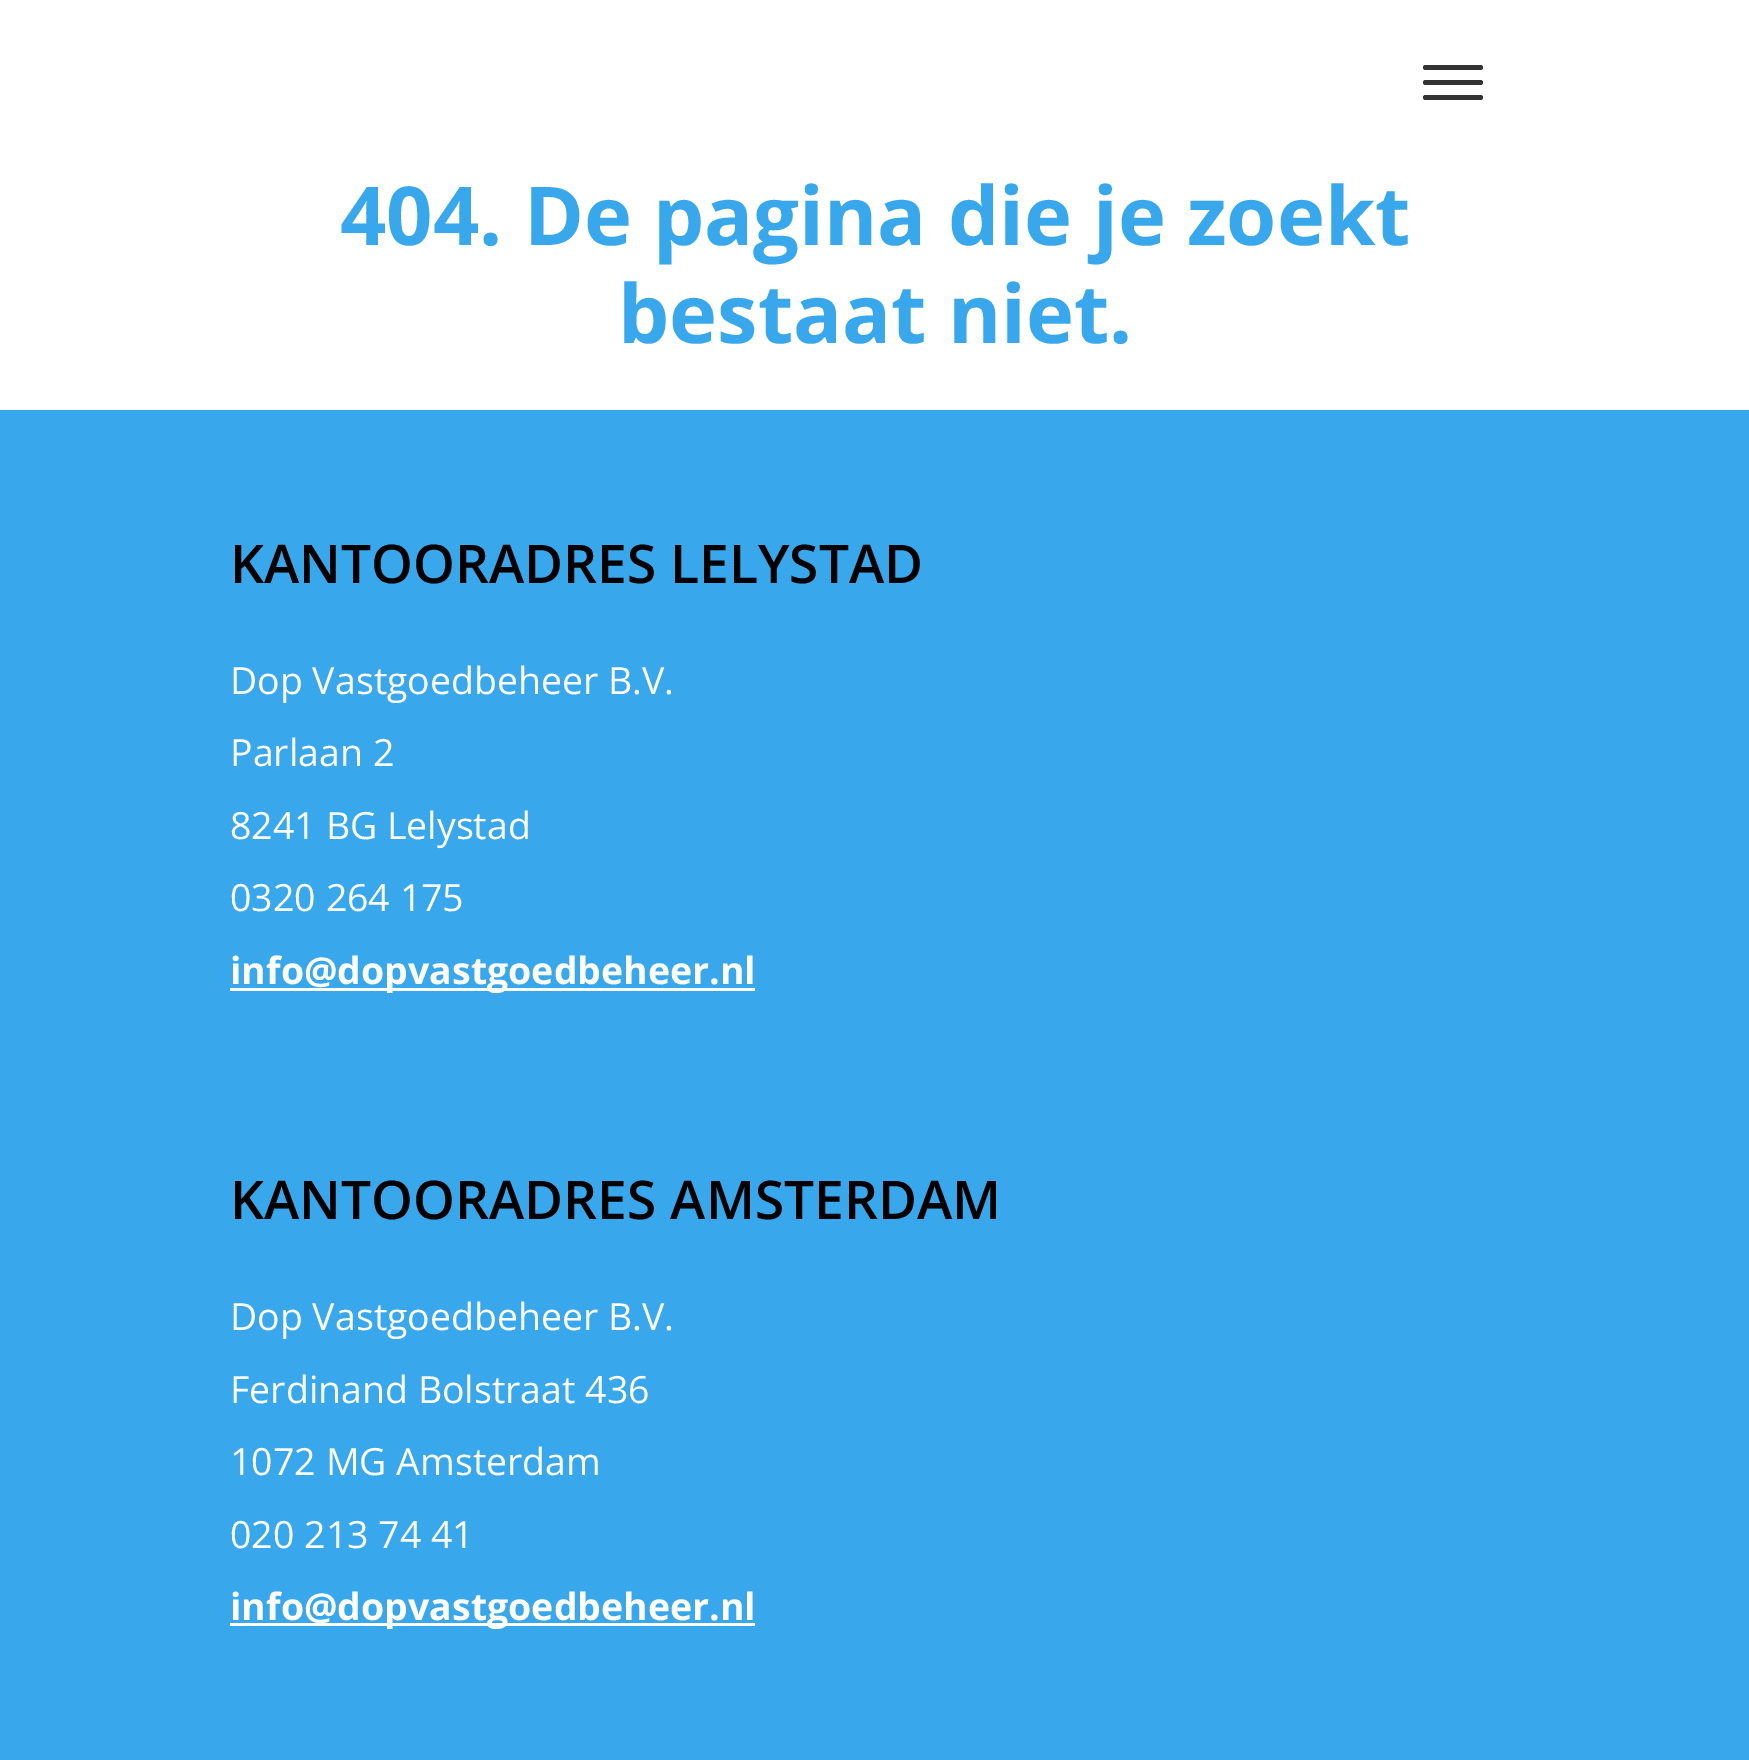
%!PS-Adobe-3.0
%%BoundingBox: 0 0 1749 1760
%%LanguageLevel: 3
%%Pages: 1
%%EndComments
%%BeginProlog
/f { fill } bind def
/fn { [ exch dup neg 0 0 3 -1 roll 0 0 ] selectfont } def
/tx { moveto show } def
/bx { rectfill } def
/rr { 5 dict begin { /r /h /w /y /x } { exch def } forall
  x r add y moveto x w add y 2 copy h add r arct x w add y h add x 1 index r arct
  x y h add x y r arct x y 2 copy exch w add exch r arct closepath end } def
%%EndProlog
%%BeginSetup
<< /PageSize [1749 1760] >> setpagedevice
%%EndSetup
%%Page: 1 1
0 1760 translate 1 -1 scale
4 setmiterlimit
1 setgray
0 0 1749 1760 bx
0.2 setgray
1423 65 60 5 2.5 rr f
1423 80 60 5 2.5 rr f
1423 95 60 5 2.5 rr f
/OpenSans-Bold 81.25 fn
0.224 0.655 0.925 setrgbcolor
(404. De pagina die je zoekt) 340 245 tx
(bestaat niet.) 618 343 tx
0 410 1749 1350 bx
/OpenSans-SemiBold 53.3 fn
0 setgray
(KANTOORADRES LELYSTAD) 230 583 tx
/OpenSans-Regular 37.5 fn
1 setgray
(Dop Vastgoedbeheer B.V.) 230 694 tx
(Parlaan 2) 230 766 tx
(8241 BG Lelystad) 230 839 tx
(0320 264 175) 230 911 tx
230 988 525 3 bx
/OpenSans-Bold 37.5 fn
(info@dopvastgoedbeheer.nl) 230 984 tx
/OpenSans-SemiBold 53.3 fn
0 setgray
(KANTOORADRES AMSTERDAM) 230 1219 tx
/OpenSans-Regular 37.5 fn
1 setgray
(Dop Vastgoedbeheer B.V.) 230 1330 tx
(Ferdinand Bolstraat 436) 230 1403 tx
(1072 MG Amsterdam) 230 1475 tx
(020 213 74 41) 230 1548 tx
230 1623 525 3 bx
/OpenSans-Bold 37.5 fn
(info@dopvastgoedbeheer.nl) 230 1620 tx
showpage
%%EOF
